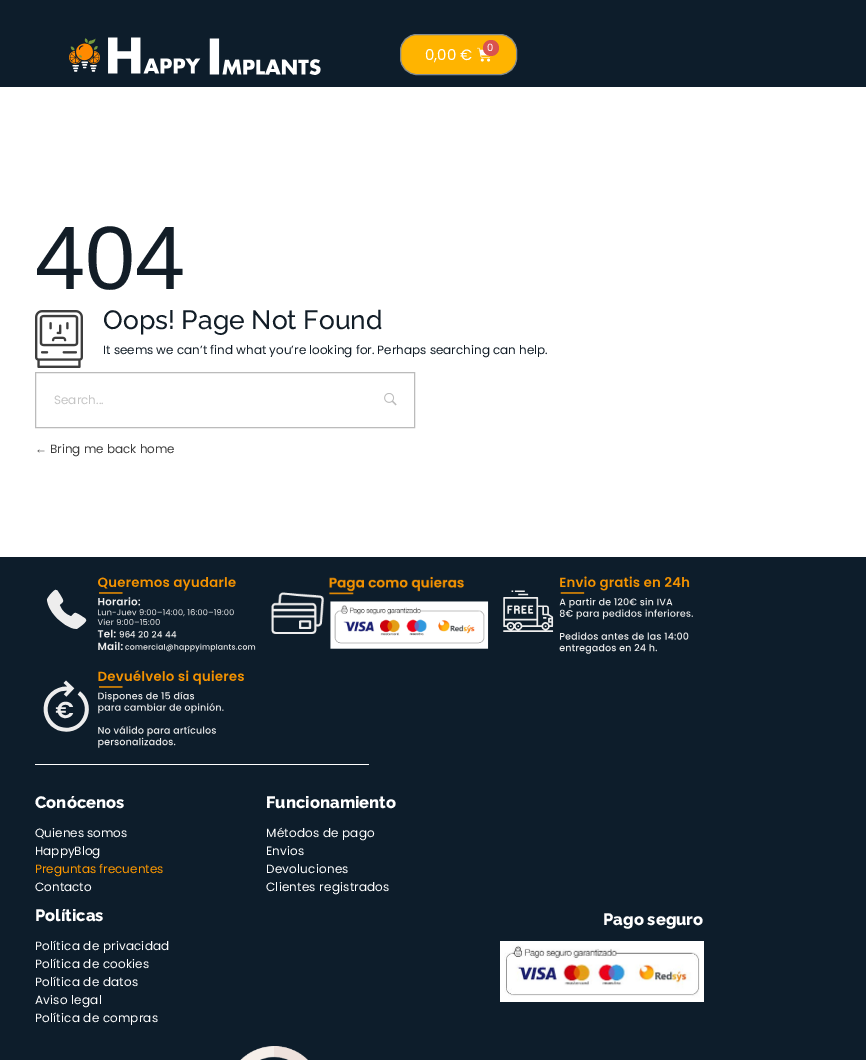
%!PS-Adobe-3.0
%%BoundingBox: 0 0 866 1060
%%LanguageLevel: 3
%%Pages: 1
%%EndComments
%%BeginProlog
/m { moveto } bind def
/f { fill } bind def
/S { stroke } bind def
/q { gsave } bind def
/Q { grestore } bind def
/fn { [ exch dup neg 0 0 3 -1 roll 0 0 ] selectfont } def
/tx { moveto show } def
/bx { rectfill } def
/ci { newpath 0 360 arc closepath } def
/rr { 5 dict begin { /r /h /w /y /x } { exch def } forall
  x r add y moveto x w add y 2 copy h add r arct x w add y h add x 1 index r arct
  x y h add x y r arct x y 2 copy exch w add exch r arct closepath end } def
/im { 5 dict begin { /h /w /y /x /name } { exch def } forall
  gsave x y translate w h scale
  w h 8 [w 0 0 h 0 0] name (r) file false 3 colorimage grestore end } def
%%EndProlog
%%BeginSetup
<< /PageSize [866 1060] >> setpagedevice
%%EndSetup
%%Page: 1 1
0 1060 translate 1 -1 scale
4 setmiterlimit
1 setgray
0 0 866 1060 bx
0.051 0.114 0.169 setrgbcolor
0 0 866 87 bx
(image0.raw) 69 37 252 38 im
1 0.706 0 setrgbcolor
400.5 34.5 116 40 16.5 rr q f Q
0.506 0.541 0.569 setrgbcolor
S
(image1.raw) 477 47 14 15 im
0.851 0.325 0.31 setrgbcolor
491 48 8 ci f
/Poppins-Regular 10 fn
1 setgray
(0) 487 51 tx
/Poppins-Regular 15 fn
(0,00 €) 425 60 tx
/LiberationSans-Regular 90 fn
0.071 0.114 0.153 setrgbcolor
(404) 35 289 tx
(image2.raw) 35 310 48 58 im
/Raleway-Medium 26.4 fn
(Oops! Page Not Found) 103 329 tx
/Poppins-Regular 12 fn
(It seems we can’t find what you’re looking for. Perhaps searching can help.) 103 354 tx
0.733 setgray
35.5 372.5 379 55 rectstroke
0.773 setgray
(Search...) 54 404 tx
(image3.raw) 384 393 13 13 im
/LiberationSans-Regular 12 fn
0.239 setgray
(←) 35 453 tx
/Poppins-Regular 12 fn
(Bring me back home) 50 453 tx
0.051 0.114 0.169 setrgbcolor
0 557 866 503 bx
(image4.raw) 46 577 210 75 im
(image5.raw) 271 576 218 73 im
(image6.raw) 503 576 190 78 im
(image7.raw) 43 670 201 78 im
1 setgray
35 764 334 1 bx
/Raleway-ExtraBold 16.5 fn
(Conócenos) 35 808 tx
/Poppins-Regular 12 fn
(Quienes somos) 35 837 tx
(HappyBlog) 35 855 tx
1 0.6 0 setrgbcolor
(Preguntas frecuentes) 35 873 tx
1 setgray
(Contacto) 35 891 tx
/Raleway-ExtraBold 16.5 fn
(Funcionamiento) 266 808 tx
/Poppins-Regular 12 fn
266 837 m 0.2 0 (Métodos de pago) ashow
266 855 m 0.2 0 (Envios) ashow
266 873 m 0.2 0 (Devoluciones) ashow
266 891 m 0.2 0 (Clientes registrados) ashow
/Raleway-ExtraBold 16.5 fn
(Políticas) 35 921 tx
/Poppins-Regular 12 fn
35 950 m 0.2 0 (Política de privacidad) ashow
35 968 m 0.2 0 (Política de cookies) ashow
35 986 m 0.2 0 (Política de datos) ashow
35 1004 m 0.2 0 (Aviso legal) ashow
35 1022 m 0.2 0 (Política de compras) ashow
/Raleway-ExtraBold 16.5 fn
(Pago seguro) 603 925 tx
(image8.raw) 500 941 204 61 im
(image9.raw) 240 1046 68 14 im
showpage
%%EOF
